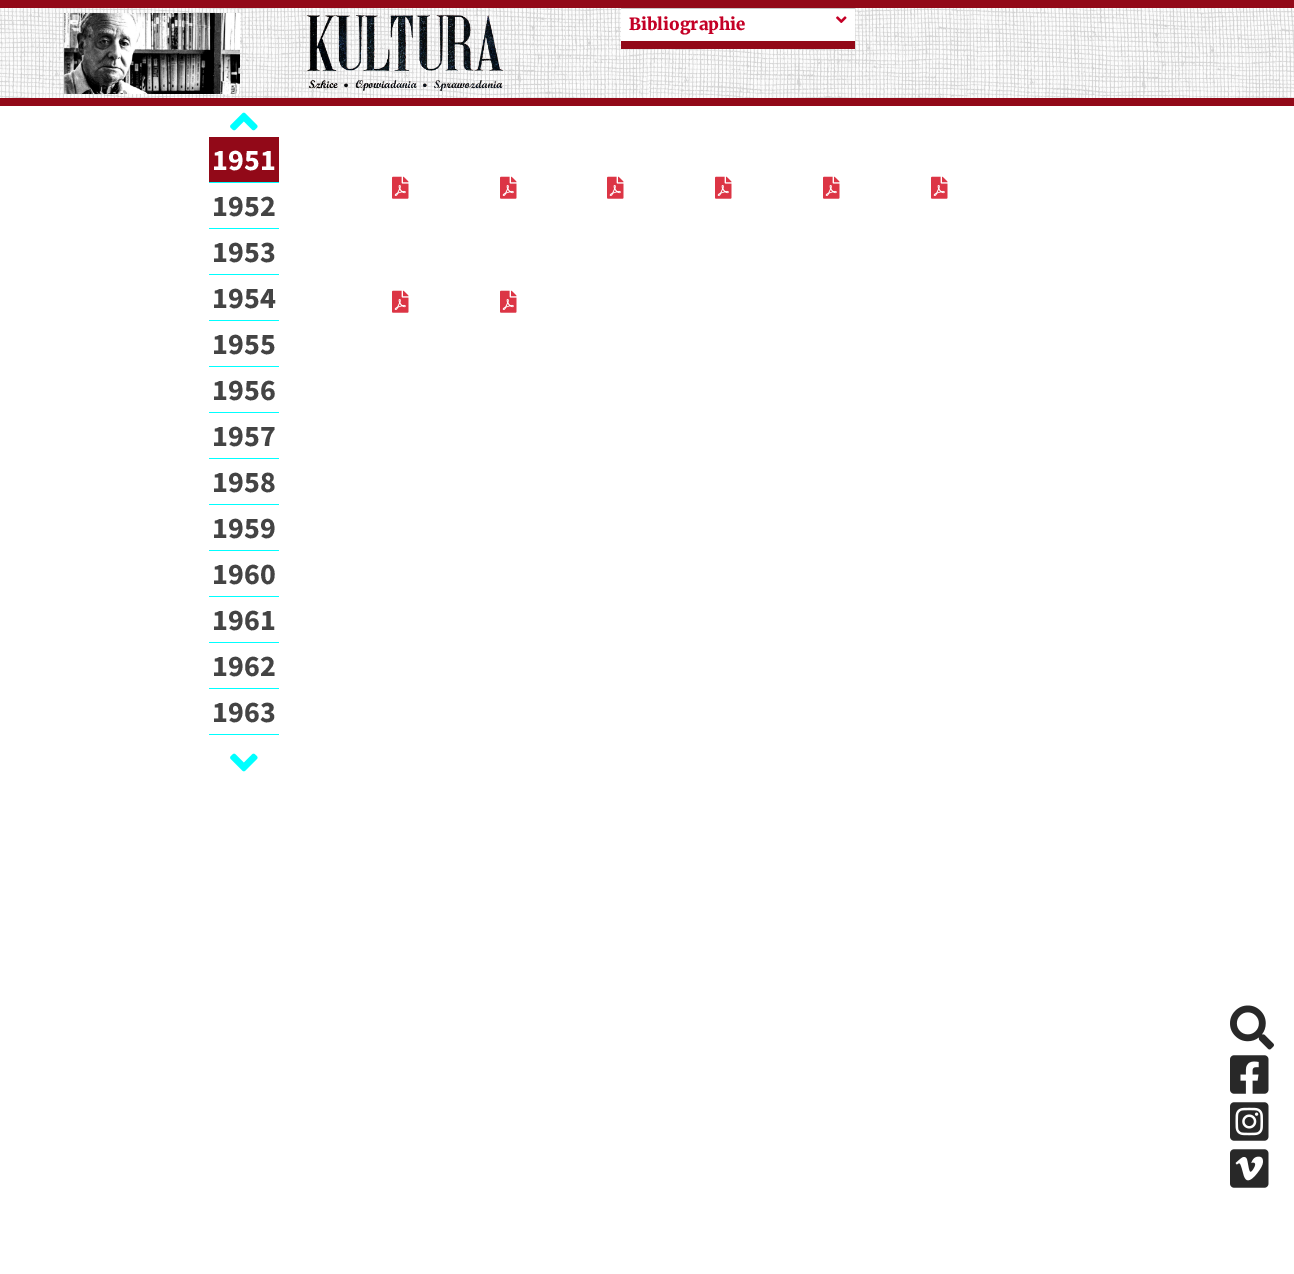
%!PS-Adobe-3.0
%%BoundingBox: 0 0 1294 1274
%%LanguageLevel: 3
%%Pages: 1
%%EndComments
%%BeginProlog
/fn { [ exch dup neg 0 0 3 -1 roll 0 0 ] selectfont } def
/tx { moveto show } def
/bx { rectfill } def
/im { 5 dict begin { /h /w /y /x /name } { exch def } forall
  gsave x y translate w h scale
  w h 8 [w 0 0 h 0 0] name (r) file false 3 colorimage grestore end } def
%%EndProlog
%%BeginSetup
<< /PageSize [1294 1274] >> setpagedevice
%%EndSetup
%%Page: 1 1
0 1274 translate 1 -1 scale
4 setmiterlimit
1 setgray
0 0 1294 1274 bx
(image0.raw) 0 8 1294 90 im
0.573 0.035 0.094 setrgbcolor
0 0 1294 8 bx
0 98 1294 8 bx
(image1.raw) 64 13 176 81 im
(image2.raw) 307 15 196 76 im
1 setgray
621 9 234 32 bx
0.784 setgray
621 8 234 1 bx
0.573 0.035 0.094 setrgbcolor
621 41 234 8 bx
/Merriweather-Black 16.75 fn
0.769 0 0.149 setrgbcolor
(Bibliographie) 629 30 tx
(image3.raw) 836 16 11 7 im
(image4.raw) 230 112 28 19 im
0 1 1 setrgbcolor
209 182 70 1 bx
0.573 0.035 0.094 setrgbcolor
209 137 70 45 bx
/SourceSansPro-Bold 30 fn
1 setgray
(1951) 212 170 tx
0 1 1 setrgbcolor
209 228 70 1 bx
0.267 setgray
(1952) 212 216 tx
0 1 1 setrgbcolor
209 274 70 1 bx
0.267 setgray
(1953) 212 262 tx
0 1 1 setrgbcolor
209 320 70 1 bx
0.267 setgray
(1954) 212 308 tx
0 1 1 setrgbcolor
209 366 70 1 bx
0.267 setgray
(1955) 212 354 tx
0 1 1 setrgbcolor
209 412 70 1 bx
0.267 setgray
(1956) 212 400 tx
0 1 1 setrgbcolor
209 458 70 1 bx
0.267 setgray
(1957) 212 446 tx
0 1 1 setrgbcolor
209 504 70 1 bx
0.267 setgray
(1958) 212 492 tx
0 1 1 setrgbcolor
209 550 70 1 bx
0.267 setgray
(1959) 212 538 tx
0 1 1 setrgbcolor
209 596 70 1 bx
0.267 setgray
(1960) 212 584 tx
0 1 1 setrgbcolor
209 642 70 1 bx
0.267 setgray
(1961) 212 630 tx
0 1 1 setrgbcolor
209 688 70 1 bx
0.267 setgray
(1962) 212 676 tx
0 1 1 setrgbcolor
209 734 70 1 bx
0.267 setgray
(1963) 212 722 tx
(image5.raw) 230 753 28 19 im
(image6.raw) 392 176 17 23 im
(image6.raw) 500 176 17 23 im
(image6.raw) 607 176 17 23 im
(image6.raw) 715 176 17 23 im
(image6.raw) 823 176 17 23 im
(image6.raw) 931 176 17 23 im
(image6.raw) 392 290 17 23 im
(image6.raw) 500 290 17 23 im
(image7.raw) 1230 1005 44 45 im
(image8.raw) 1230 1055 39 39 im
(image9.raw) 1230 1102 39 39 im
(image10.raw) 1230 1149 39 39 im
showpage
%%EOF
